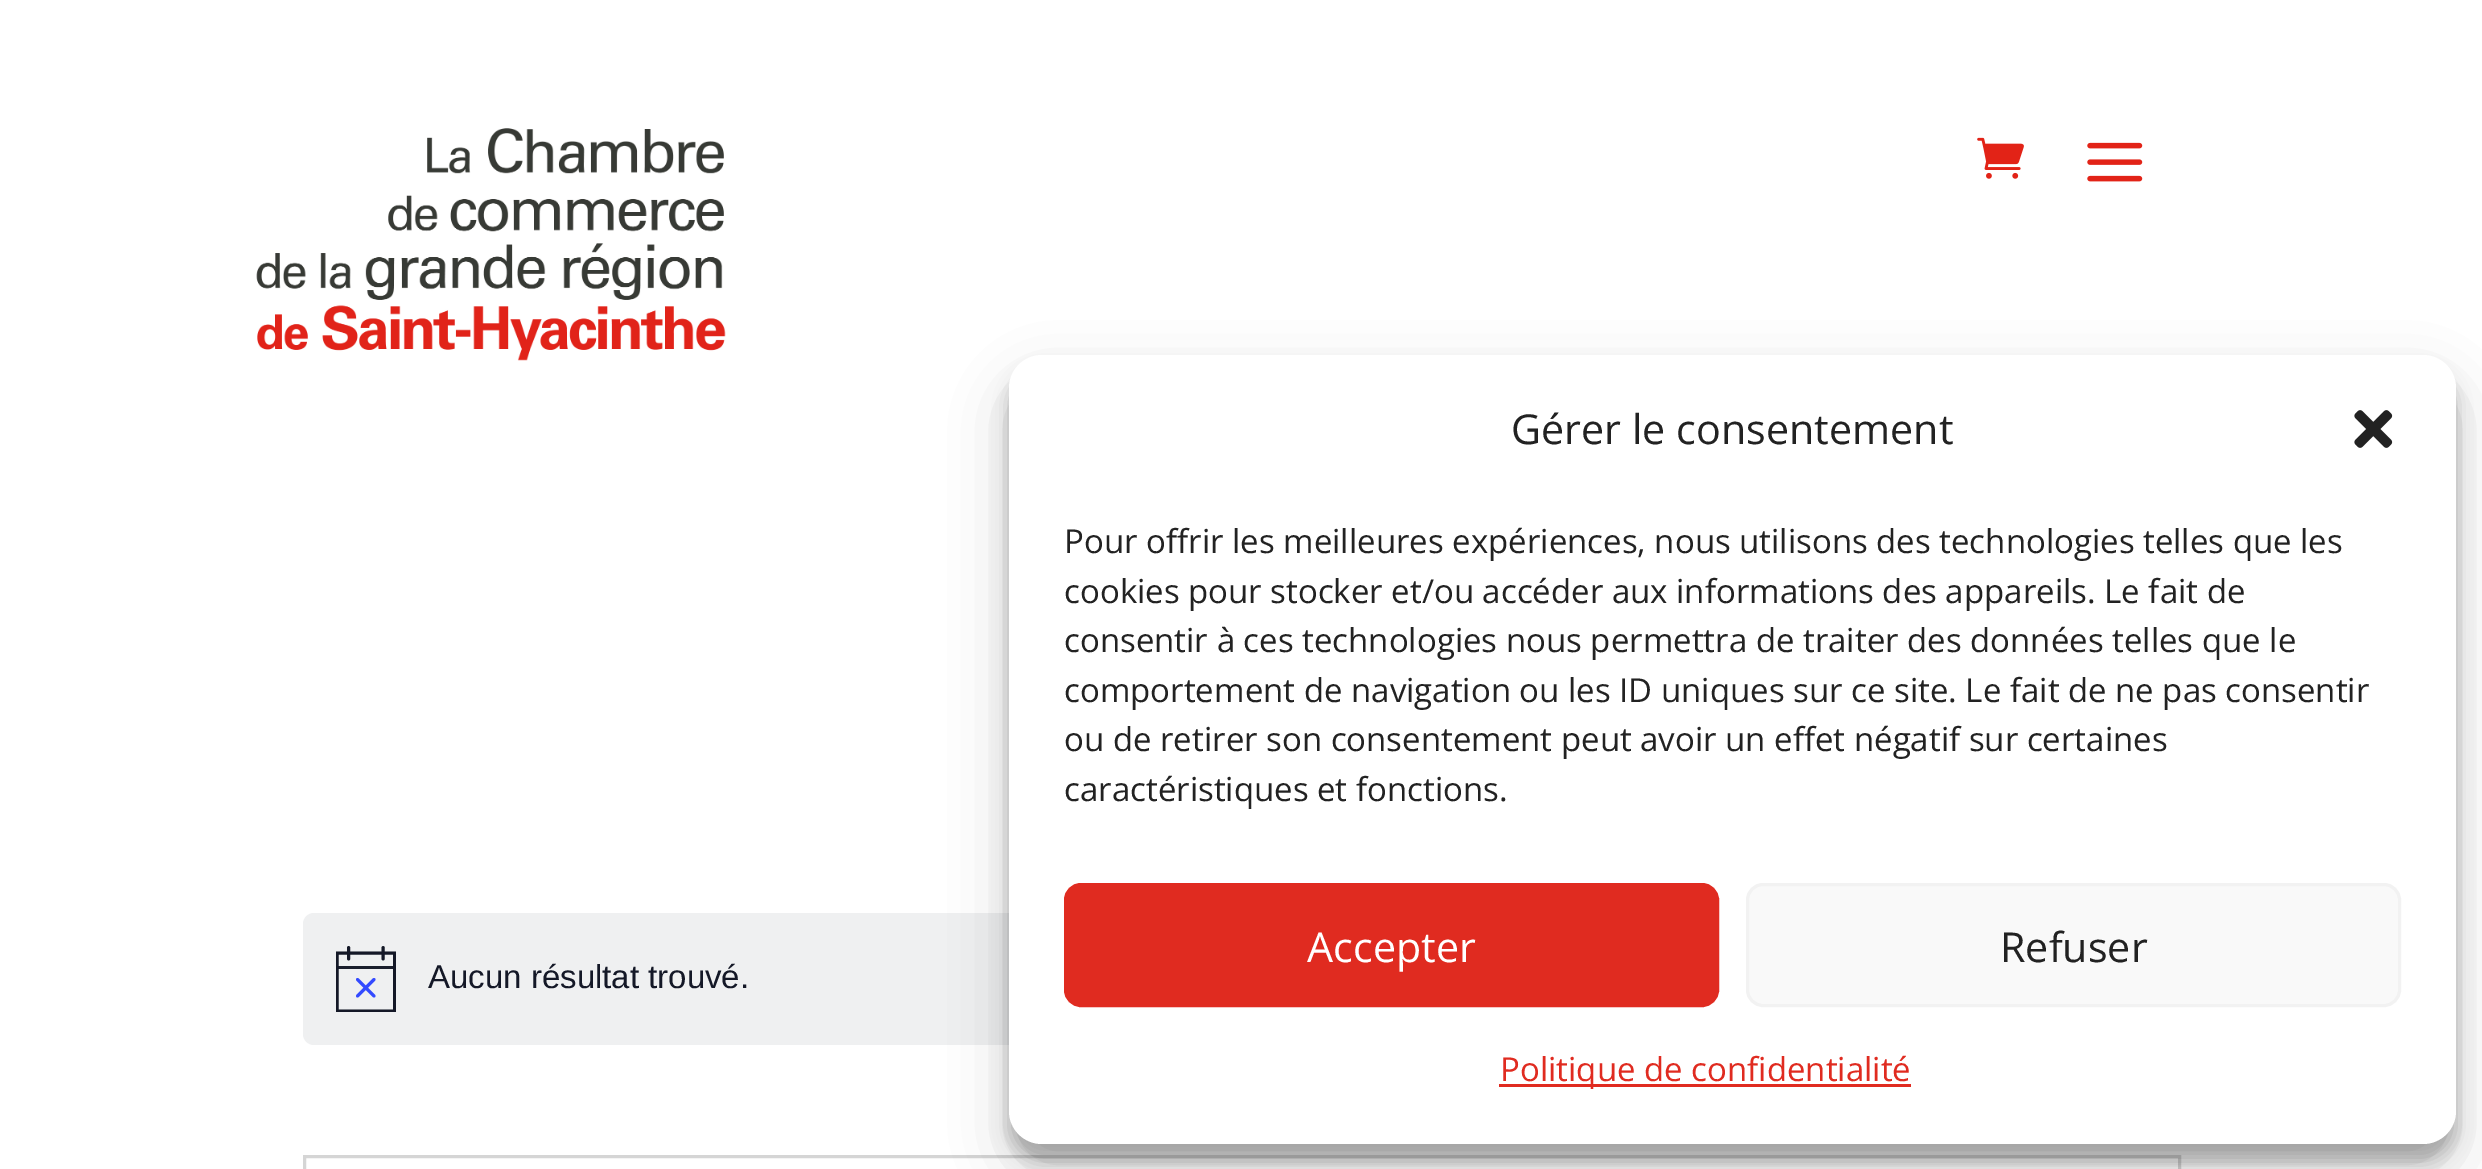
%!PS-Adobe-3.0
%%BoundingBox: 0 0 2482 1169
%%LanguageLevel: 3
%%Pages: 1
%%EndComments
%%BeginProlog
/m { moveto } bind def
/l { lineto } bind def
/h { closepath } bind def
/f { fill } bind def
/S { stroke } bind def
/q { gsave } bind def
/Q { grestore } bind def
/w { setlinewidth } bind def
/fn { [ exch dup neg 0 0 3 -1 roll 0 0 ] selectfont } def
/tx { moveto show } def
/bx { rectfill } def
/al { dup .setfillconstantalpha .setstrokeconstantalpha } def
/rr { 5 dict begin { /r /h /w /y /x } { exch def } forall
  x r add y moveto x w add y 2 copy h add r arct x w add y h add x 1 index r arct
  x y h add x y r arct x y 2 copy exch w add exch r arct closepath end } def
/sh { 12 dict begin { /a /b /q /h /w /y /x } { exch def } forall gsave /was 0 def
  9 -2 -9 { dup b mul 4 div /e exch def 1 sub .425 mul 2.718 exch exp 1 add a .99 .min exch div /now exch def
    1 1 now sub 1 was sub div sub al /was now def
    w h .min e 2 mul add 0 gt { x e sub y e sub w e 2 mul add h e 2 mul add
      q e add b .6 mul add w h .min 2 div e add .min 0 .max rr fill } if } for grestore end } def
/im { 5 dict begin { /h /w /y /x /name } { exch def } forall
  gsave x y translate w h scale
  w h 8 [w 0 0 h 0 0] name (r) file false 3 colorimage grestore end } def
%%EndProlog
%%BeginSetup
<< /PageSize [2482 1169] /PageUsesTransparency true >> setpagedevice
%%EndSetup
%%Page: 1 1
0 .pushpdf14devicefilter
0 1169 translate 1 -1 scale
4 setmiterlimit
1 setgray
0 0 2482 1169 bx
(image0.raw) 256 128 470 233 im
(image1.raw) 1977 137 47 42 im
(image2.raw) 2087 142 56 40 im
0.937 0.941 0.945 setrgbcolor
303 913 1878 132 11 rr f
q
336 946 60 66 rectclip
0.078 0.094 0.153 setrgbcolor
2.9 w
337 953 m 394.5 953 l 394.5 1011 l 337 1011 l h S
Q
0.2 0.29 1 setrgbcolor
2.9 w
1 setlinecap
357.5 979.5 m 374 996 l 374 979.5 m 357.5 996 l S
0.078 0.094 0.153 setrgbcolor
348.5 947.5 m 348.5 959 l 383 947.5 m 383 959 l S
0.97 al
336 966 60 3 bx
/LiberationSans-Regular 33 fn
1 al
(Aucun résultat trouvé.) 428 988 tx
0.835 setgray
3 w
0 setlinecap
304.5 1156.5 1875 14 rectstroke
0 setgray
1009 371 1447 790 33 8 0.23 sh
1009 382 1447 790 33 27.5 0.19 sh
1 setgray
1009 355 1447 789 33 rr f
/OpenSans-Regular 41.25 fn
0.133 setgray
(Gérer le consentement) 1511 444 tx
(image3.raw) 2354 410 39 38 im
/OpenSans-Regular 33 fn
(Pour offrir les meilleures expériences, nous utilisons des technologies telles que les) 1064 553 tx
(cookies pour stocker et/ou accéder aux informations des appareils. Le fait de) 1064 603 tx
(consentir à ces technologies nous permettra de traiter des données telles que le) 1064 652 tx
(comportement de navigation ou les ID uniques sur ce site. Le fait de ne pas consentir) 1064 702 tx
(ou de retirer son consentement peut avoir un effet négatif sur certaines) 1064 751 tx
(caractéristiques et fonctions.) 1064 801 tx
0.878 0.169 0.125 setrgbcolor
1065.5 884.5 652 121 15.5 rr q f Q
S
/OpenSans-Regular 41.25 fn
1 setgray
(Accepter) 1307 962 tx
0.976 setgray
1747.5 884.5 652 121 15.5 rr q f Q
0.949 setgray
S
0.133 setgray
(Refuser) 2000 962 tx
0.878 0.169 0.125 setrgbcolor
1499 1084 412 3 bx
/OpenSans-Regular 33 fn
(Politique de confidentialité) 1500 1081 tx
.poppdf14devicefilter showpage
%%EOF
